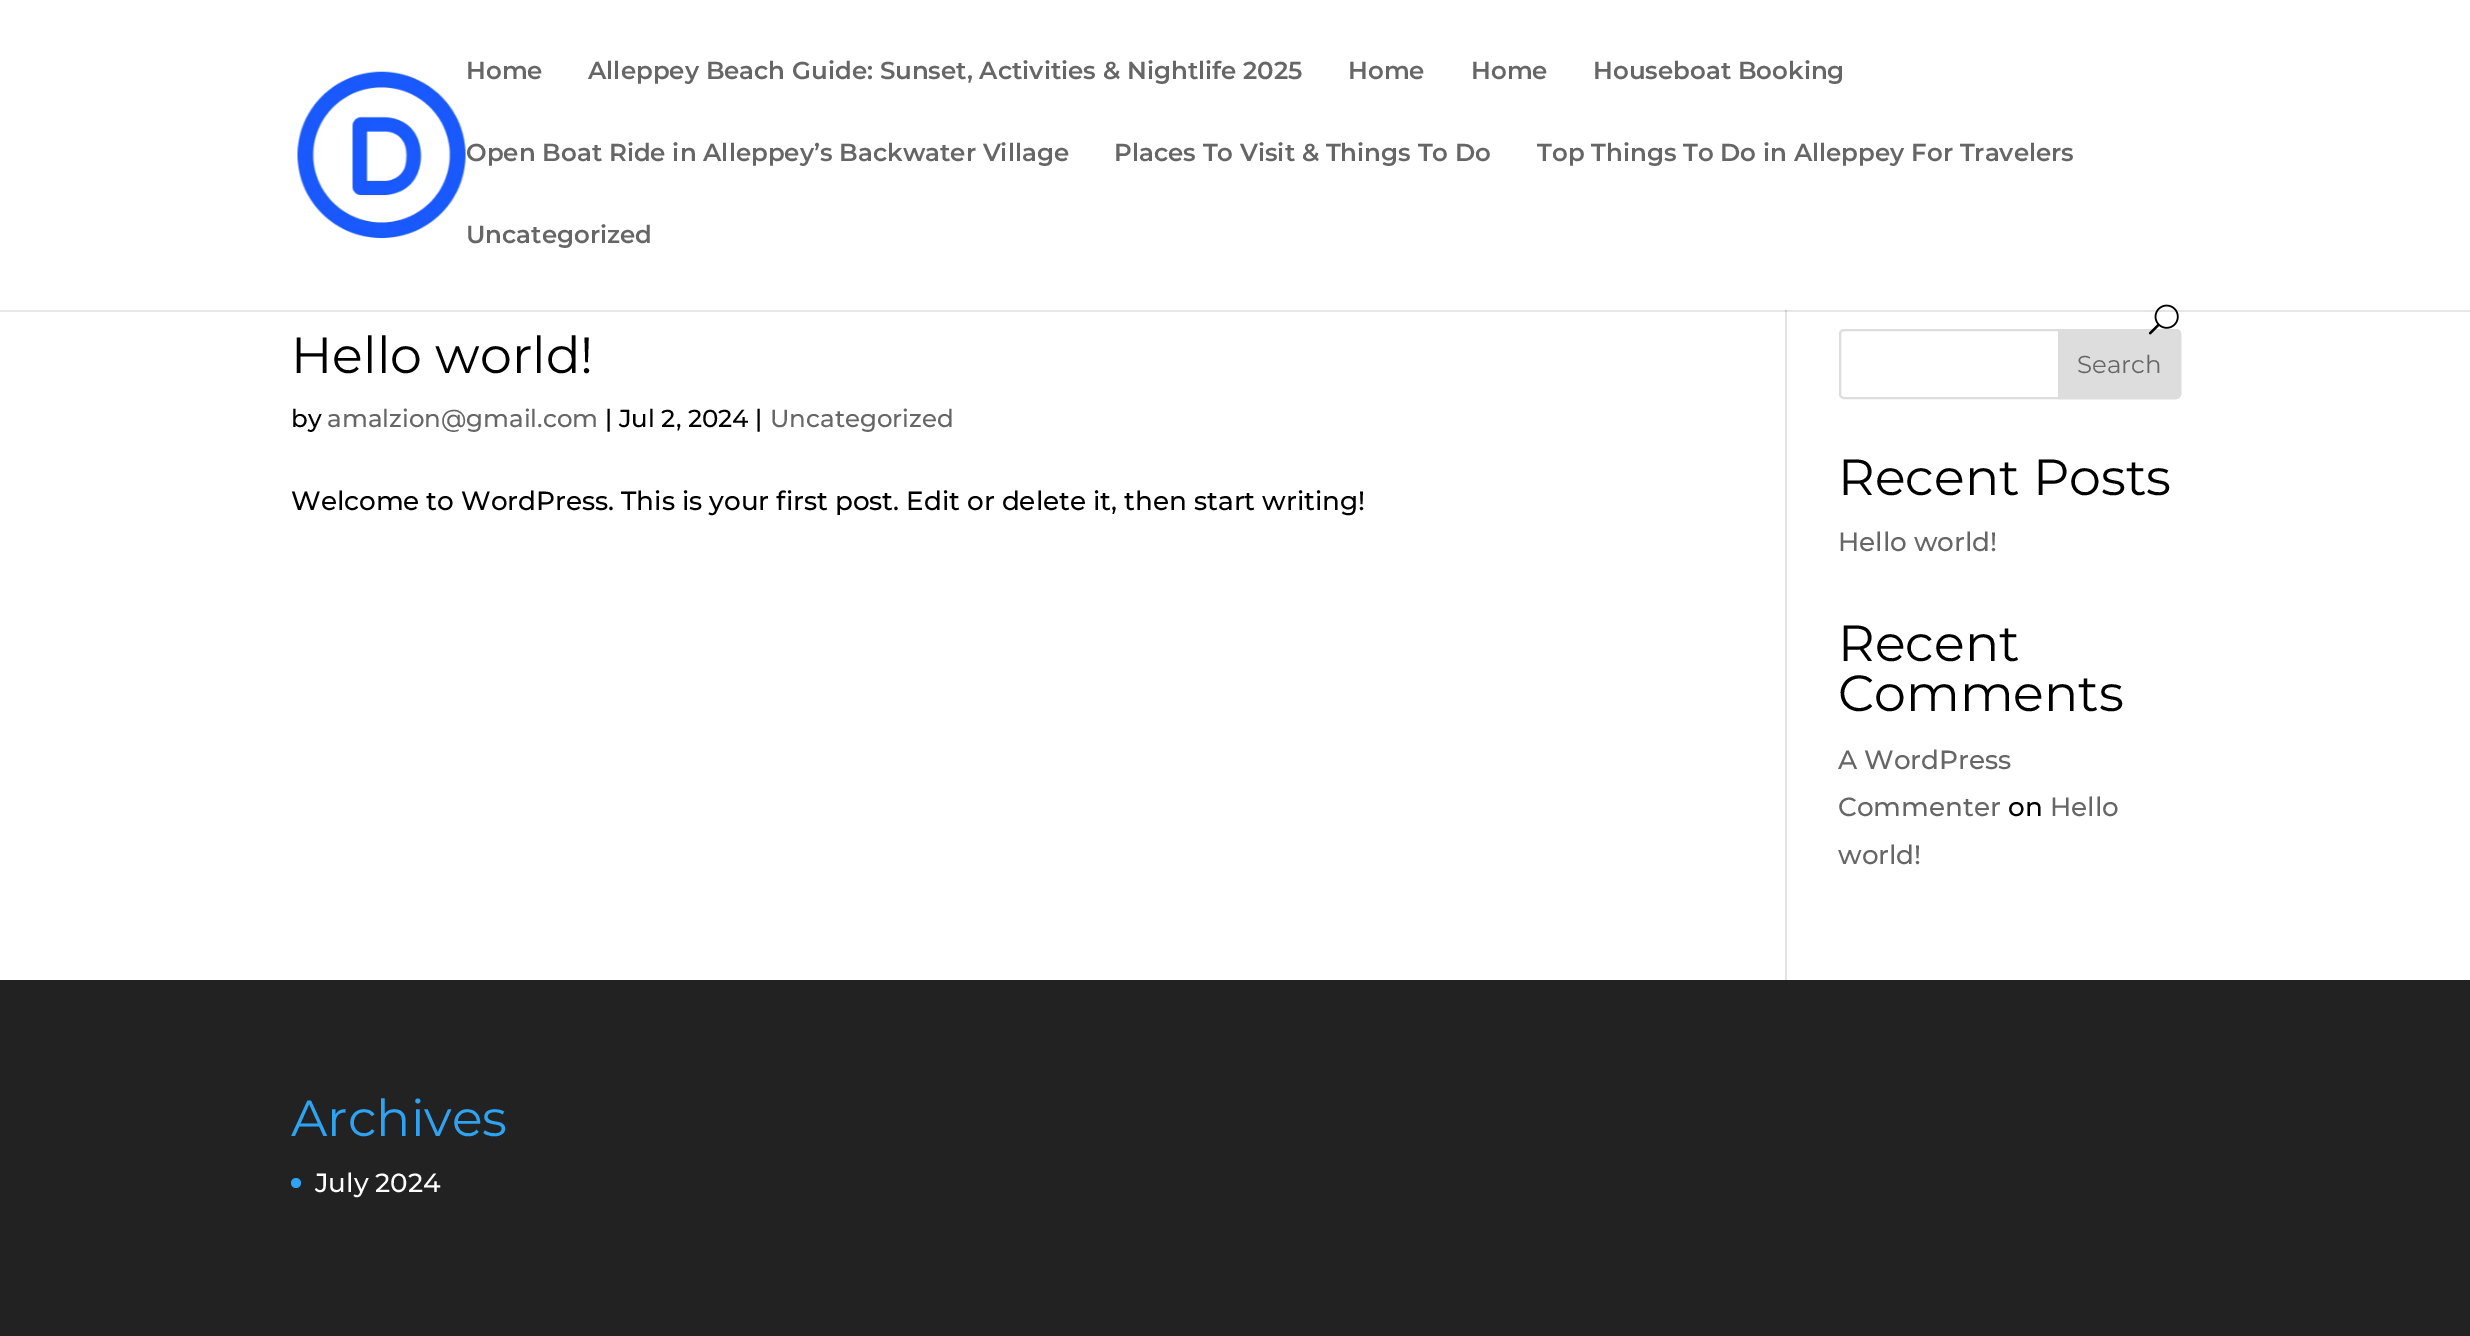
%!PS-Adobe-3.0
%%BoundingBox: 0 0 2470 1336
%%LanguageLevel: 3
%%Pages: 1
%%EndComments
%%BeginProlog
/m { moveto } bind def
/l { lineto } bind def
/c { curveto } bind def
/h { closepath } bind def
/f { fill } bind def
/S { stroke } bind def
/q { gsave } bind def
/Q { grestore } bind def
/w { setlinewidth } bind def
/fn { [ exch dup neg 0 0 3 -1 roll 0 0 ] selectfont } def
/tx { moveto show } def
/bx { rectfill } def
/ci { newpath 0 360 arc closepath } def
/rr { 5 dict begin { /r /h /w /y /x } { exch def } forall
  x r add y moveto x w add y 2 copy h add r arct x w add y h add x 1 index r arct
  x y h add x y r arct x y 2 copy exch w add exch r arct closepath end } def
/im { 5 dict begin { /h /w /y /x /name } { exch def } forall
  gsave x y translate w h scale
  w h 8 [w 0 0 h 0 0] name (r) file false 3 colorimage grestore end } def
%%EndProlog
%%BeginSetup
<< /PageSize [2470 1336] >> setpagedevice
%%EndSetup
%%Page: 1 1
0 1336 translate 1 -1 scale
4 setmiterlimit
1 setgray
0 0 2470 1336 bx
0.902 setgray
0 310 2470 2 bx
(image0.raw) 297 71 169 167 im
/Montserrat-SemiBold 24.5 fn
0.4 setgray
(Home) 466 79 tx
(Alleppey Beach Guide: Sunset, Activities & Nightlife 2025) 588 79 tx
(Home) 1348 79 tx
(Home) 1471 79 tx
(Houseboat Booking) 1593 79 tx
(Open Boat Ride in Alleppey’s Backwater Village) 466 161 tx
(Places To Visit & Things To Do) 1114 161 tx
(Top Things To Do in Alleppey For Travelers) 1537 161 tx
(Uncategorized) 466 243 tx
0.867 setgray
2 w
1840 330 340 68 4 rr S
2059 330 m 2176 330 l 2178 330 2180 332 2180 334 c 2180 394 l 2180 396 2178 398 2176 398 c 2059 398 l h q f Q
S
(image1.raw) 2148 304 31 31 im
0.886 setgray
1785 312 2 668 bx
0.796 setgray
1785 310 2 2 bx
/Montserrat-Regular 50.75 fn
0 setgray
(Hello world!) 291 373 tx
/Montserrat-Medium 24.5 fn
(by) 291 427 tx
0.4 setgray
(amalzion@gmail.com) 327 427 tx
0 setgray
(| Jul 2, 2024 |) 605 427 tx
0.4 setgray
(Uncategorized) 770 427 tx
/Montserrat-Medium 26.25 fn
0 setgray
(Welcome to WordPress. This is your first post. Edit or delete it, then start writing!) 291 510 tx
/Montserrat-Regular 24.5 fn
0.4 setgray
(Search) 2077 373 tx
/Montserrat-Regular 50.75 fn
0 setgray
(Recent Posts) 1838 495 tx
/Montserrat-Medium 26.25 fn
0.4 setgray
(Hello world!) 1838 551 tx
/Montserrat-Regular 50.75 fn
0 setgray
(Recent) 1838 661 tx
(Comments) 1838 711 tx
/Montserrat-Medium 26.25 fn
0.4 setgray
(A WordPress) 1838 769 tx
(Commenter) 1838 816 tx
0 setgray
(on) 2008 816 tx
0.4 setgray
(Hello) 2050 816 tx
(world!) 1838 864 tx
0.133 setgray
0 980 2470 356 bx
/Montserrat-Regular 50.75 fn
0.18 0.639 0.949 setrgbcolor
(Archives) 291 1136 tx
296 1183 5 ci f
/Montserrat-Medium 26.25 fn
1 setgray
(July 2024) 315 1192 tx
showpage
%%EOF
